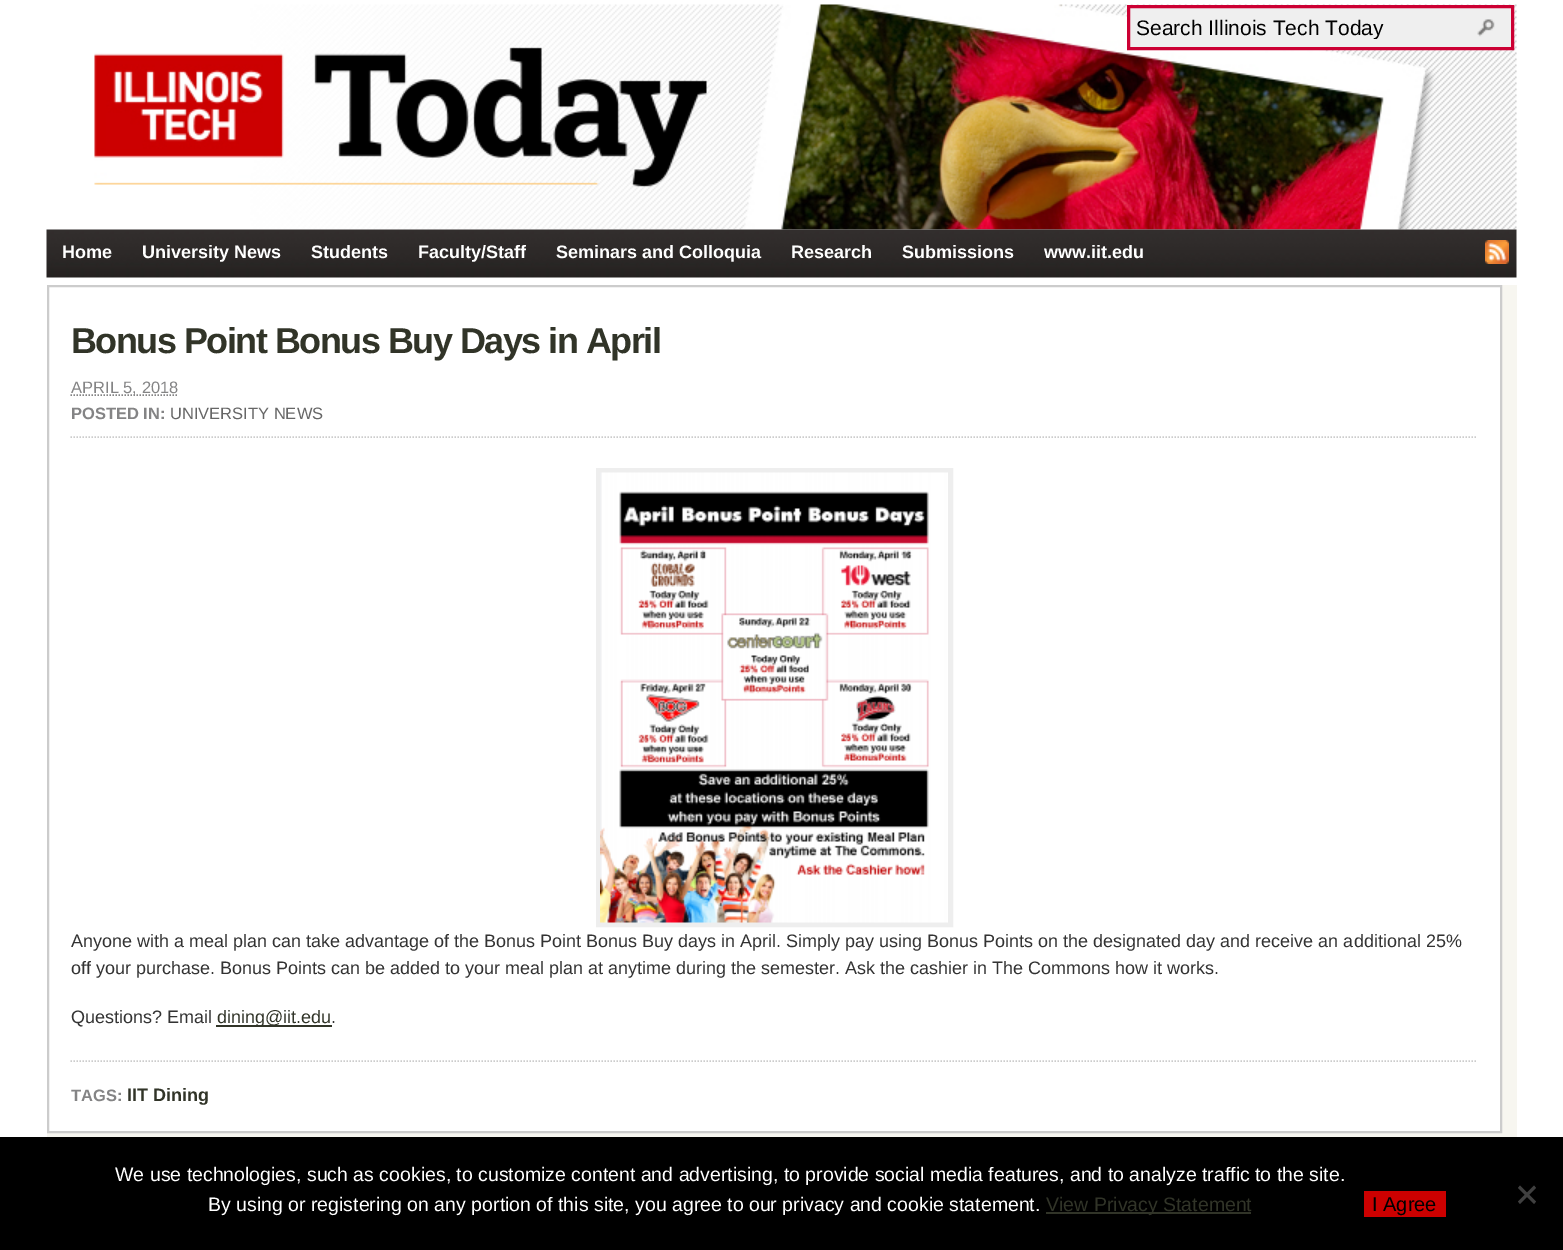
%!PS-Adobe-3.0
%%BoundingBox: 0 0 1563 1250
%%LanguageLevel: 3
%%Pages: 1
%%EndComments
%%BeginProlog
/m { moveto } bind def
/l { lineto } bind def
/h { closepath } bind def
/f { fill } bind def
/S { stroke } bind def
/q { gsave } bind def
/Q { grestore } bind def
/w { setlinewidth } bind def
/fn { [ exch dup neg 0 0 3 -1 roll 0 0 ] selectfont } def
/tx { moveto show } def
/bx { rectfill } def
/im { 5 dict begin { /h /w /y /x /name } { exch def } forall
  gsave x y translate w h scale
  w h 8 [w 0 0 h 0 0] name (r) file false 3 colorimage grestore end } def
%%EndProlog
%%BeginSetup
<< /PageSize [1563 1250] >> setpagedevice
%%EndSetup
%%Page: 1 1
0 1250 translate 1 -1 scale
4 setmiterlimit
1 setgray
0 0 1563 1250 bx
(image0.raw) 94 4 1423 226 im
0.937 setgray
1128.5 6.5 m 1512.5 6.5 l 1512.5 48.5 l 1128.5 48.5 l h q f Q
0.8 0 0.2 setrgbcolor
3 w
S
q
1136 15 339 24 rectclip
/LiberationSans-Regular 21 fn
0 setgray
(Search Illinois Tech Today) 1136 35 tx
Q
(image1.raw) 1477 19 18 18 im
(image2.raw) 46 229 1471 49 im
/LiberationSans-Bold 18 fn
1 setgray
(Home) 62 258 tx
(University News) 142 258 tx
(Students) 311 258 tx
(Faculty/Staff) 418 258 tx
(Seminars and Colloquia) 556 258 tx
(Research) 791 258 tx
(Submissions) 902 258 tx
(www.iit.edu) 1044 258 tx
(image3.raw) 1485 240 24 24 im
0.969 0.965 0.941 setrgbcolor
47 285 1470 852 bx
1 setgray
48 286 m 1501 286 l 1501 1132 l 48 1132 l h q f Q
0.8 setgray
2 w
S
/LiberationSans-Bold 36 fn
0.192 0.204 0.157 setrgbcolor
71 353 m -1.5 0 (Bonus Point Bonus Buy Days in April) ashow
0.8 setgray
1.5 w
[1.5 1.5] 0 setdash
70.5 437 m 1477.5 437 l S
0.518 0.518 0.522 setrgbcolor
70.5 395 m 178 395 l S
/LiberationSans-Regular 16.5 fn
(APRIL 5, 2018) 71 393 tx
/LiberationSans-Bold 16.5 fn
(POSTED IN:) 71 419 tx
/LiberationSans-Regular 16.5 fn
0.4 setgray
(UNIVERSITY NEWS) 170 419 tx
0.933 setgray
5 w
[] 0 setdash
598.5 470.5 352 454 rectstroke
(image4.raw) 600 472 348 451 im
/LiberationSans-Regular 18 fn
0.2 setgray
(Anyone with a meal plan can take advantage of the Bonus Point Bonus Buy days in April. Simply pay using Bonus Points on the designated day and receive an additional 25%) 71 947 tx
(off your purchase. Bonus Points can be added to your meal plan at anytime during the semester. Ask the cashier in The Commons how it works.) 71 974 tx
(Questions? Email) 71 1023 tx
0.192 0.204 0.157 setrgbcolor
216 1025 116 2 bx
(dining@iit.edu) 217 1023 tx
0.2 setgray
(.) 331 1023 tx
0.8 setgray
1.5 w
[1.5 1.5] 0 setdash
70.5 1061 m 1477.5 1061 l S
/LiberationSans-Bold 16.5 fn
0.518 0.518 0.522 setrgbcolor
(TAGS:) 71 1101 tx
/LiberationSans-Bold 18 fn
0.192 0.204 0.157 setrgbcolor
(IIT Dining) 127 1101 tx
0 setgray
0 1137 1563 113 bx
/LiberationSans-Regular 19.5 fn
1 setgray
(We use technologies, such as cookies, to customize content and advertising, to provide social media features, and to analyze traffic to the site.) 115 1181 tx
(By using or registering on any portion of this site, you agree to our privacy and cookie statement.) 208 1211 tx
0.192 0.204 0.157 setrgbcolor
1046 1212 205 2 bx
(View Privacy Statement) 1046 1211 tx
0.251 setgray
1534 1185.5 m 1536 1188 l 1520 1204 l 1518 1201.5 l h f
1518 1188 m 1520 1185.5 l 1536 1201.5 l 1534 1204 l h f
0.8 0 0 setrgbcolor
1364 1191 82 26 bx
/LiberationSans-Regular 20 fn
0 setgray
(I Agree) 1372 1211 tx
showpage
%%EOF
